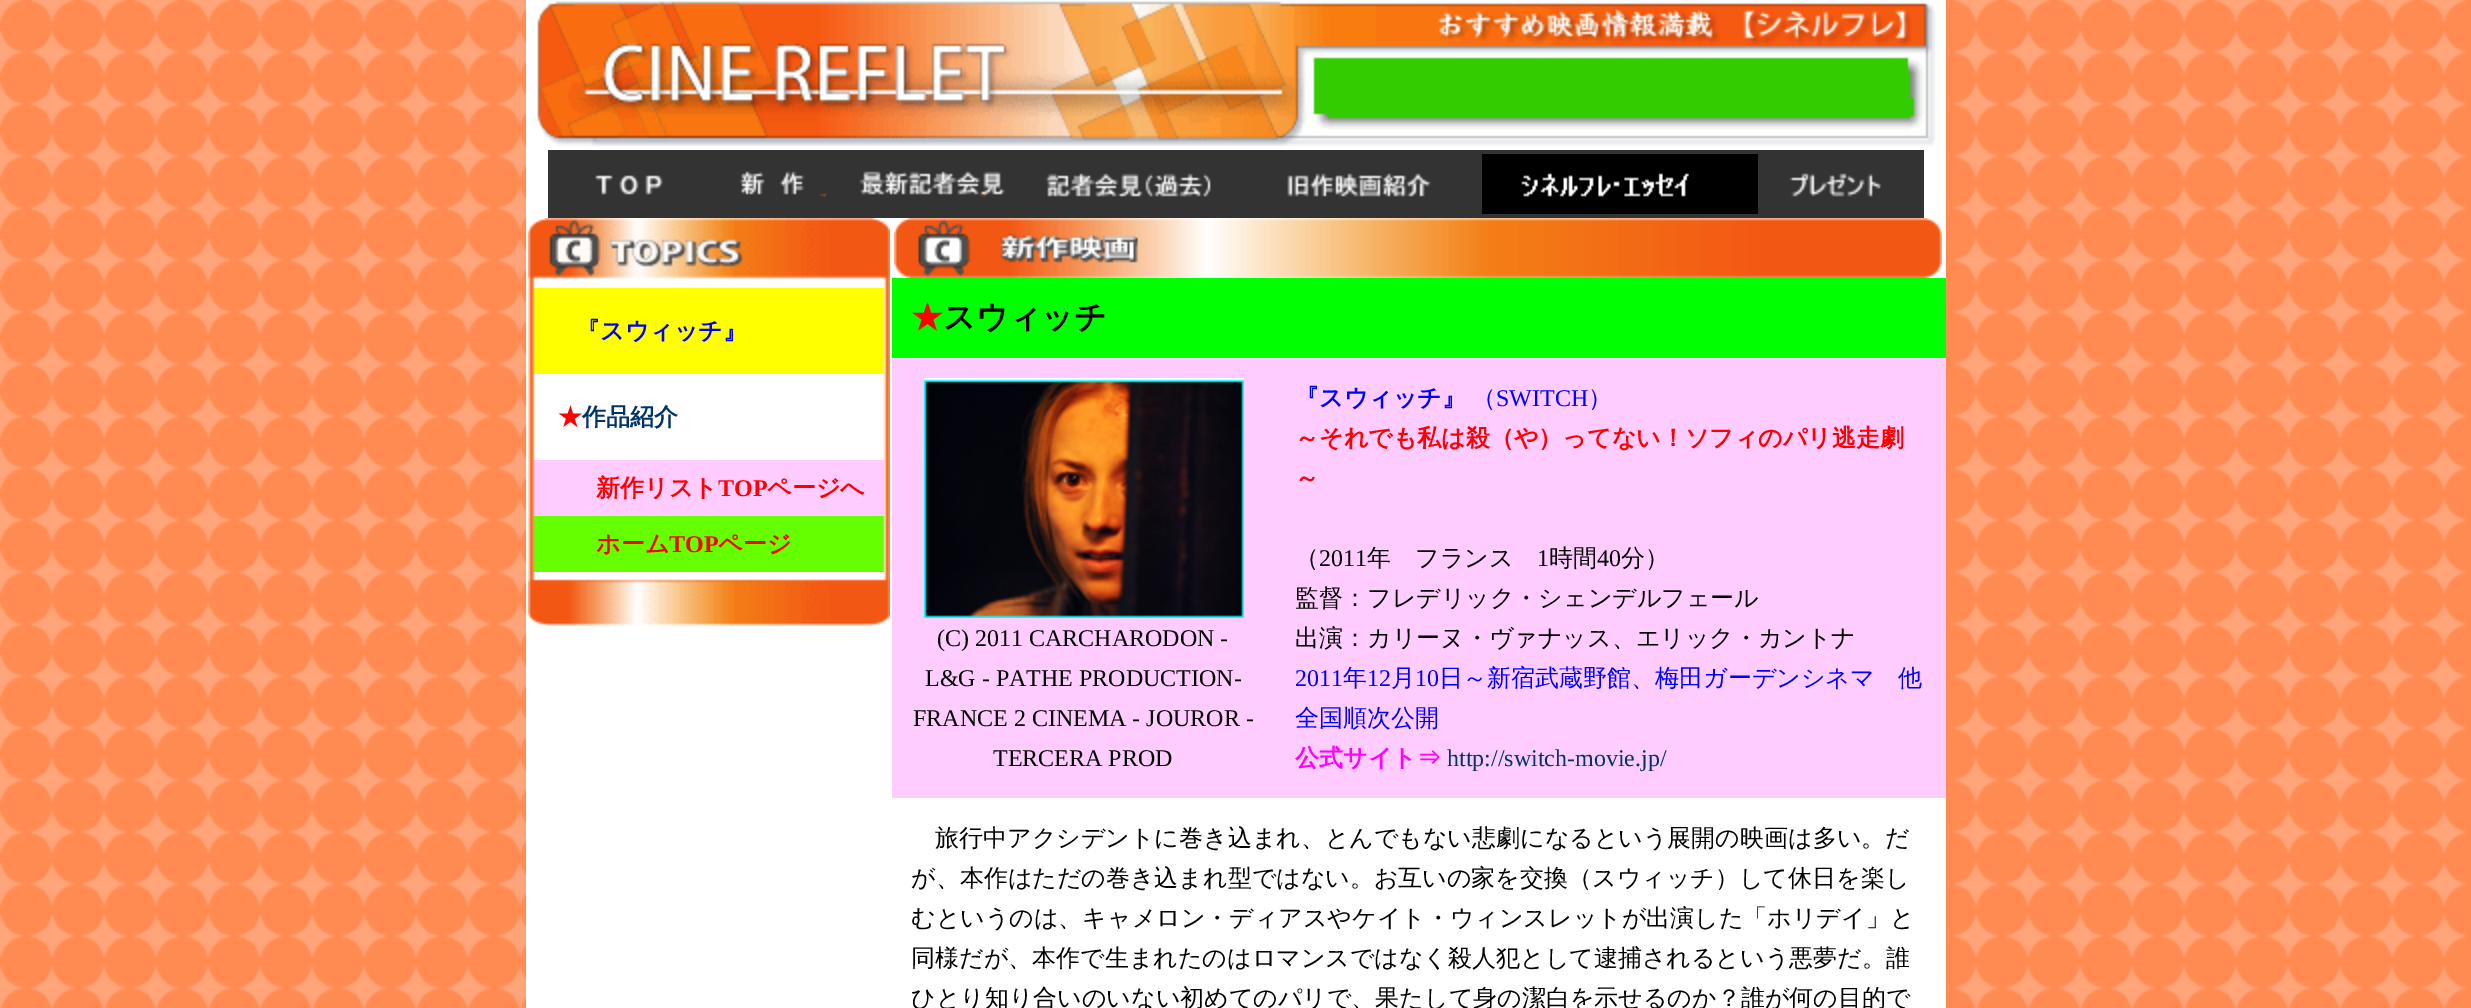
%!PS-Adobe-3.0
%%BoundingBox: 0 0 2471 1008
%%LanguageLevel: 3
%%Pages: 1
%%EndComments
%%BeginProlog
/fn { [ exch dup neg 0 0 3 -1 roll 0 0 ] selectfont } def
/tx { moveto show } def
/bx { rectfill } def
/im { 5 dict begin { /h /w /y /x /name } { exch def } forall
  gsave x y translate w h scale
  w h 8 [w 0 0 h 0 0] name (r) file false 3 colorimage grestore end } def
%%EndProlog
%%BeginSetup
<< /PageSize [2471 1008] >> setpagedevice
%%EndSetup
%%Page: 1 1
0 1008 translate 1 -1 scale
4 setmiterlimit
1 setgray
0 0 2471 1008 bx
(image0.raw) 0 0 2471 1008 im
526 0 1420 1008 bx
(image1.raw) 537 1 1399 146 im
0.2 setgray
548 150 1376 68 bx
(image2.raw) 595 175 68 20 im
(image3.raw) 739 171 87 26 im
(image4.raw) 859 171 146 26 im
(image5.raw) 1045 173 166 24 im
(image6.raw) 1287 173 144 24 im
(image7.raw) 1482 154 276 60 im
(image8.raw) 1789 173 93 24 im
(image9.raw) 528 218 362 70 im
1 1 0 setrgbcolor
533 288 352 86 bx
(image10.raw) 528 288 362 86 im
/WenQuanYiZenHei-Bold 24 fn
0 0 1 setrgbcolor
(『スウィッチ』) 576 339 tx
(image11.raw) 528 374 362 86 im
1 0 0 setrgbcolor
(★) 558 425 tx
0 0.2 0.4 setrgbcolor
(作品紹介) 582 425 tx
1 0.8 1 setrgbcolor
533 460 352 56 bx
(image12.raw) 528 460 362 56 im
1 0 0 setrgbcolor
(新作リスト) 596 496 tx
/LiberationSerif-Bold 24 fn
(TOP) 718 496 tx
/WenQuanYiZenHei-Bold 24 fn
(ページへ) 767 496 tx
0.4 1 0 setrgbcolor
533 516 352 56 bx
(image13.raw) 528 516 362 56 im
1 0 0 setrgbcolor
(ホーム) 596 552 tx
/LiberationSerif-Bold 24 fn
(TOP) 669 552 tx
/WenQuanYiZenHei-Bold 24 fn
(ページ) 718 552 tx
(image14.raw) 528 572 362 54 im
(image15.raw) 894 218 1048 60 im
0 1 0 setrgbcolor
892 278 1054 80 bx
/WenQuanYiZenHei-Bold 32 fn
1 0 0 setrgbcolor
(★) 911 328 tx
0 setgray
(スウィッチ) 943 328 tx
1 0.8 1 setrgbcolor
892 358 1054 440 bx
(image16.raw) 924 378 320 240 im
/LiberationSerif-Regular 24 fn
0 setgray
(\(C\) 2011 CARCHARODON -) 937 646 tx
(L&G - PATHE PRODUCTION-) 925 686 tx
(FRANCE 2 CINEMA - JOUROR -) 913 726 tx
(TERCERA PROD) 993 766 tx
/WenQuanYiZenHei-Bold 24 fn
0 0 1 setrgbcolor
(『スウィッチ』) 1295 406 tx
/WenQuanYiZenHei-Medium 24 fn
(（) 1472 406 tx
/LiberationSerif-Regular 24 fn
(SWITCH) 1496 406 tx
/WenQuanYiZenHei-Medium 24 fn
(）) 1588 406 tx
/WenQuanYiZenHei-Bold 24 fn
1 0 0 setrgbcolor
(～それでも私は殺（や）ってない！ソフィのパリ逃走劇) 1295 446 tx
(～) 1295 486 tx
/WenQuanYiZenHei-Medium 24 fn
0 setgray
(（) 1295 566 tx
/LiberationSerif-Regular 24 fn
(2011) 1319 566 tx
/WenQuanYiZenHei-Medium 24 fn
(年　フランス) 1367 566 tx
/LiberationSerif-Regular 24 fn
(1) 1537 566 tx
/WenQuanYiZenHei-Medium 24 fn
(時間) 1549 566 tx
/LiberationSerif-Regular 24 fn
(40) 1597 566 tx
/WenQuanYiZenHei-Medium 24 fn
(分）) 1621 566 tx
(監督：フレデリック・シェンデルフェール) 1295 606 tx
(出演：カリーヌ・ヴァナッス、エリック・カントナ) 1295 646 tx
/LiberationSerif-Regular 24 fn
0 0 1 setrgbcolor
(2011) 1295 686 tx
/WenQuanYiZenHei-Medium 24 fn
(年) 1343 686 tx
/LiberationSerif-Regular 24 fn
(12) 1367 686 tx
/WenQuanYiZenHei-Medium 24 fn
(月) 1391 686 tx
/LiberationSerif-Regular 24 fn
(10) 1415 686 tx
/WenQuanYiZenHei-Medium 24 fn
(日～新宿武蔵野館、梅田ガーデンシネマ　他) 1439 686 tx
(全国順次公開) 1295 726 tx
/WenQuanYiZenHei-Bold 24 fn
1 0 1 setrgbcolor
(公式サイト⇒) 1295 766 tx
/LiberationSerif-Regular 24 fn
0 0.2 0.4 setrgbcolor
(http://switch-movie.jp/) 1447 766 tx
/WenQuanYiZenHei-Medium 24 fn
0 setgray
(旅行中アクシデントに巻き込まれ、とんでもない悲劇になるという展開の映画は多い。だ) 935 846 tx
(が、本作はただの巻き込まれ型ではない。お互いの家を交換（スウィッチ）して休日を楽し) 911 886 tx
(むというのは、キャメロン・ディアスやケイト・ウィンスレットが出演した「ホリデイ」と) 911 926 tx
(同様だが、本作で生まれたのはロマンスではなく殺人犯として逮捕されるという悪夢だ。誰) 911 966 tx
(ひとり知り合いのいない初めてのパリで、果たして身の潔白を示せるのか？誰が何の目的で) 911 1006 tx
showpage
%%EOF
